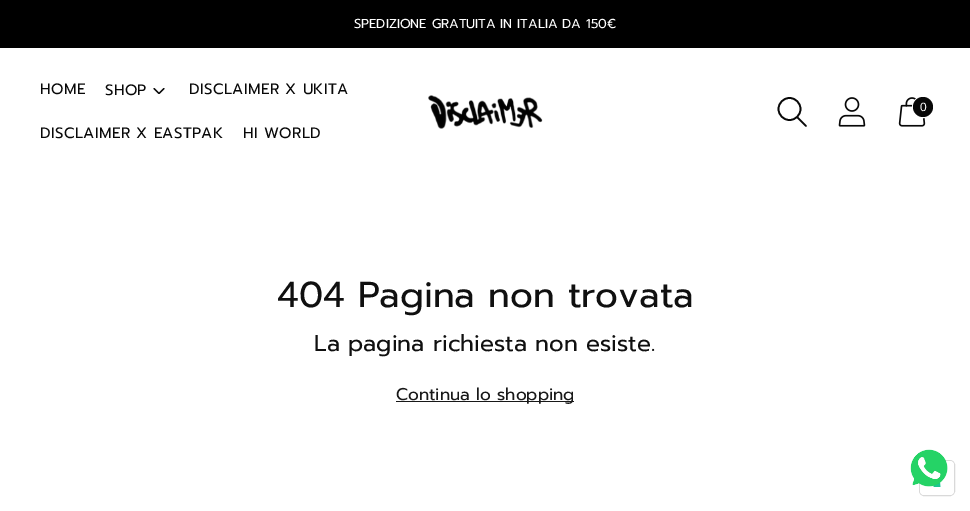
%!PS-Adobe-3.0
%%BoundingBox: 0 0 970 511
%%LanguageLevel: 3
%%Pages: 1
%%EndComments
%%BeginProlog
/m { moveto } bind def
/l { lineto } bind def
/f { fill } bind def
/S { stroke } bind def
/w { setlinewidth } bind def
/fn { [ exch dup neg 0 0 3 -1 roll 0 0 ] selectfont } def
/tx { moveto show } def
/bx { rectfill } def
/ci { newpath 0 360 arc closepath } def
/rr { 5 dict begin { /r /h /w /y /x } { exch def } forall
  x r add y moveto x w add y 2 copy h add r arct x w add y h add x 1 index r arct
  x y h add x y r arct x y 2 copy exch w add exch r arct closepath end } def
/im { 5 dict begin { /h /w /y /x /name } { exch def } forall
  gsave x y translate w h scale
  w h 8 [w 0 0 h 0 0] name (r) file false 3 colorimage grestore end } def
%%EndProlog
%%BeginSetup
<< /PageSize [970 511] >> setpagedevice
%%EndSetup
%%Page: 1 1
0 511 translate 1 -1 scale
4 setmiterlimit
1 setgray
0 0 970 511 bx
0 setgray
0 0 970 48 bx
/Prompt-Regular 13 fn
1 setgray
(SPEDIZIONE GRATUITA IN ITALIA DA 150€) 354 28 tx
/Prompt-Regular 15 fn
0.031 setgray
40 94 m 0.4 0 (HOME) ashow
105 95 m 0.4 0 (SHOP) ashow
1.2 w
1 setlinecap
1 setlinejoin
154 88.5 m 159 93.5 l 164 88.5 l S
189 94 m 0.4 0 (DISCLAIMER X UKITA) ashow
40 138 m 0.4 0 (DISCLAIMER X EASTPAK) ashow
243 138 m 0.4 0 (HI WORLD) ashow
(image0.raw) 428 95 115 34 im
1.7 w
0 setlinecap
0 setlinejoin
789.5 109 11 ci S
1 setlinecap
1 setlinejoin
797.5 117.5 m 806 126 l S
(image1.raw) 838 97 28 30 im
(image2.raw) 898 97 28 30 im
1 setgray
1 w
0 setlinecap
0 setlinejoin
923 107 10.5 ci S
0.031 setgray
923 107 10 ci f
/LiberationSans-Regular 12 fn
1 setgray
(0) 920 111 tx
/Prompt-Regular 36 fn
0.063 setgray
(404 Pagina non trovata) 277 307 tx
/Prompt-Regular 23 fn
(La pagina richiesta non esiste.) 314 351 tx
0.094 setgray
396 401 178 1 bx
/Prompt-Regular 17 fn
(Continua lo shopping) 396 400 tx
0.851 setgray
919.5 460.5 35 35 4.5 rr S
1 setgray
920 461 34 34 4 rr f
(image4.raw) 933 482 8 5 im
(image3.raw) 910 449 38 38 im
showpage
%%EOF
